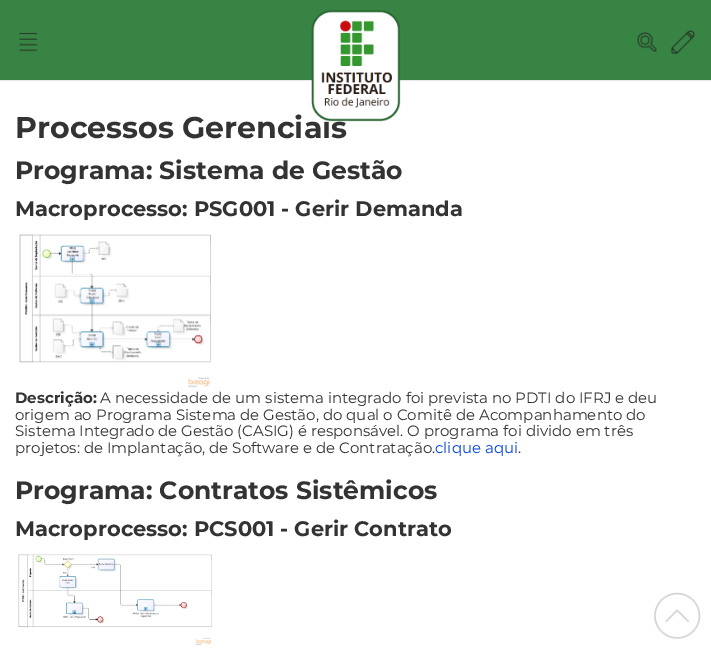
%!PS-Adobe-3.0
%%BoundingBox: 0 0 711 650
%%LanguageLevel: 3
%%Pages: 1
%%EndComments
%%BeginProlog
/fn { [ exch dup neg 0 0 3 -1 roll 0 0 ] selectfont } def
/tx { moveto show } def
/bx { rectfill } def
/im { 5 dict begin { /h /w /y /x /name } { exch def } forall
  gsave x y translate w h scale
  w h 8 [w 0 0 h 0 0] name (r) file false 3 colorimage grestore end } def
%%EndProlog
%%BeginSetup
<< /PageSize [711 650] >> setpagedevice
%%EndSetup
%%Page: 1 1
0 650 translate 1 -1 scale
4 setmiterlimit
1 setgray
0 0 711 650 bx
0.22 0.518 0.271 setrgbcolor
0 0 711 80 bx
0.91 setgray
0 80 711 1 bx
/Montserrat-Bold 30 fn
0.2 setgray
(Processos Gerenciais) 15 138 tx
(image0.raw) 311 10 90 112 im
(image1.raw) 19 32 19 20 im
(image2.raw) 637 32 20 20 im
(image3.raw) 671 30 24 24 im
/Montserrat-Bold 25 fn
(Programa: Sistema de Gestão) 15 179 tx
/Montserrat-Bold 21 fn
(Macroprocesso: PSG001 - Gerir Demanda) 15 216 tx
(image4.raw) 19 234 192 154 im
/Montserrat-Bold 15 fn
(Descrição:) 15 403 tx
/Montserrat-Regular 15 fn
(A necessidade de um sistema integrado foi prevista no PDTI do IFRJ e deu) 100 403 tx
(origem ao Programa Sistema de Gestão, do qual o Comitê de Acompanhamento do) 15 420 tx
(Sistema Integrado de Gestão \(CASIG\) é responsável. O programa foi divido em três) 15 436 tx
(projetos: de Implantação, de Software e de Contratação.) 15 453 tx
0.02 0.263 0.875 setrgbcolor
(clique aqui) 435 453 tx
0.2 setgray
(.) 518 453 tx
/Montserrat-Bold 25 fn
(Programa: Contratos Sistêmicos) 15 499 tx
/Montserrat-Bold 21 fn
(Macroprocesso: PCS001 - Gerir Contrato) 15 536 tx
(image5.raw) 18 554 194 92 im
(image6.raw) 654 592 47 47 im
showpage
%%EOF
